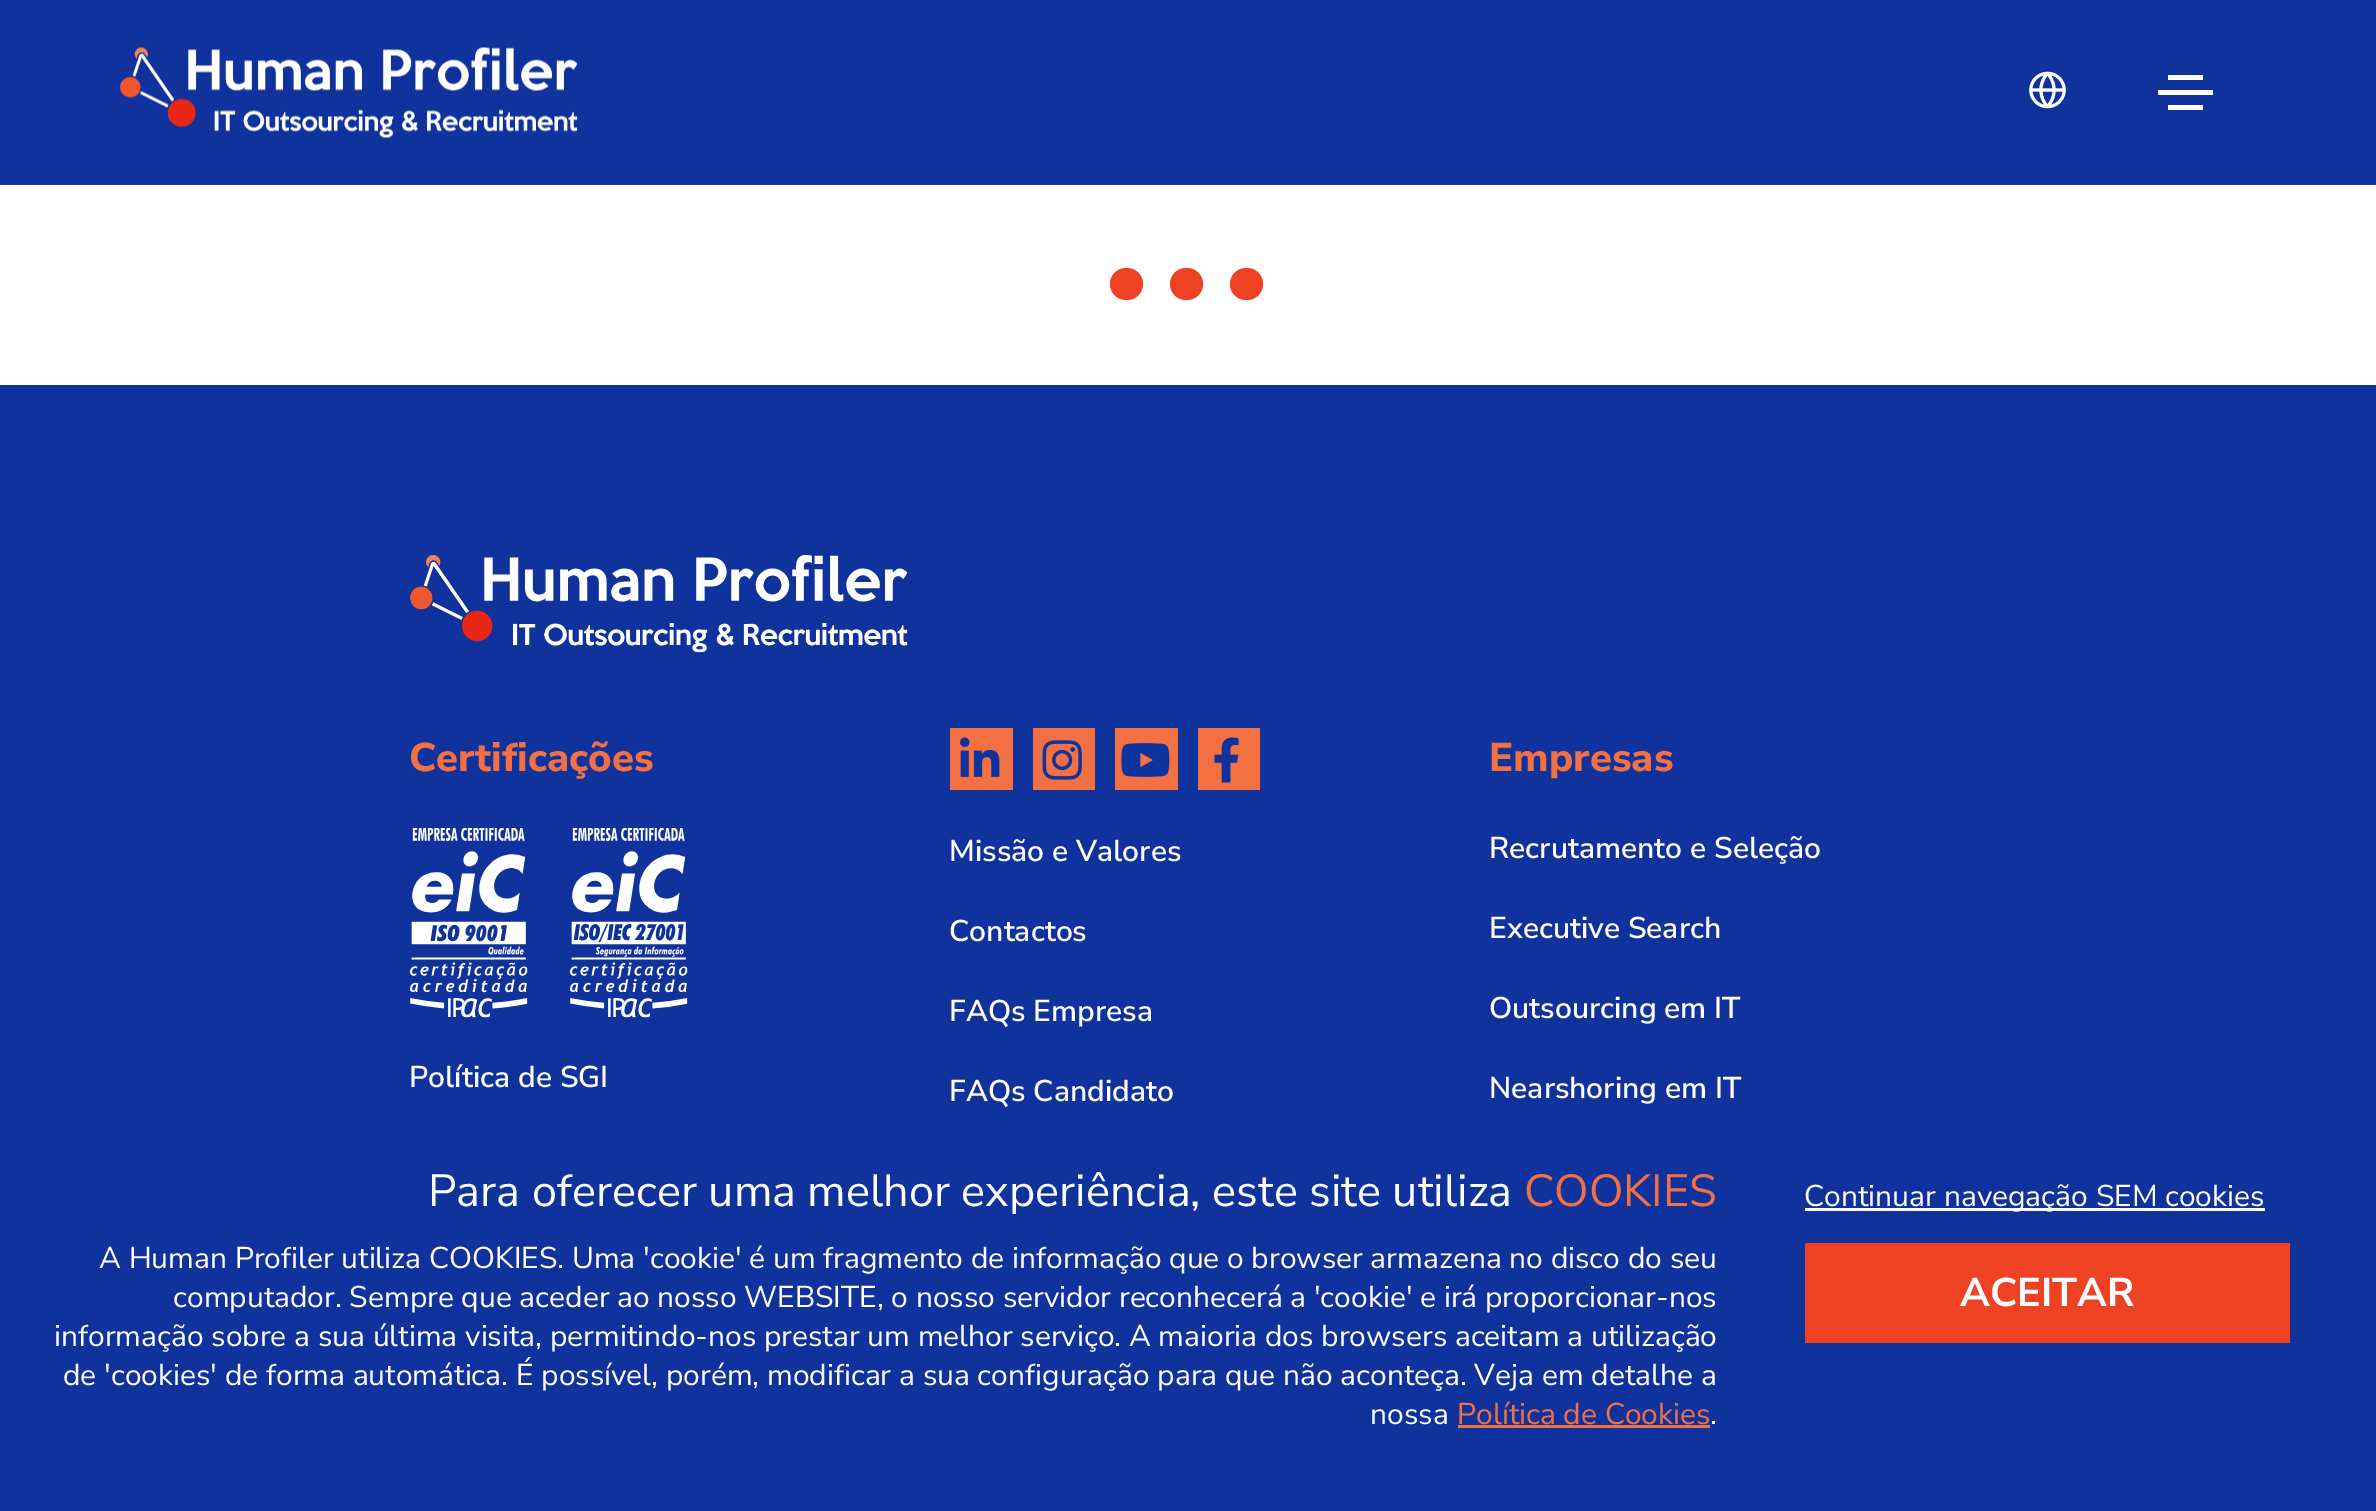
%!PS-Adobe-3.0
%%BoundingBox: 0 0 2376 1511
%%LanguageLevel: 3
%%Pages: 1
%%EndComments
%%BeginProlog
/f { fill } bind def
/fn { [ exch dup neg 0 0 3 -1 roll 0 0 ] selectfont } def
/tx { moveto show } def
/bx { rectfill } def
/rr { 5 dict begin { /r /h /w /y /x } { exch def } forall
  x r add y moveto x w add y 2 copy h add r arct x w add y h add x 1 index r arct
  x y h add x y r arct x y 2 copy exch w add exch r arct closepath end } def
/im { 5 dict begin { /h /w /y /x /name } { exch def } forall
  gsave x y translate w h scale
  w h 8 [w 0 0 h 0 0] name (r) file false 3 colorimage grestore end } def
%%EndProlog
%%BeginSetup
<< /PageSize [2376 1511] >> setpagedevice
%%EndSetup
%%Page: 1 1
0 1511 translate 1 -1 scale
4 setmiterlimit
1 setgray
0 0 2376 1511 bx
0.059 0.196 0.616 setrgbcolor
0 0 2376 185 bx
(image0.raw) 120 47 458 91 im
(image1.raw) 2029 71 37 38 im
1 setgray
2168 75 35 5 bx
2158 90 55 5 bx
2168 105 35 5 bx
0.937 0.255 0.137 setrgbcolor
1110 268 33 32 16 rr f
1170 268 33 32 16 rr f
1230 268 33 32 16 rr f
0.059 0.196 0.616 setrgbcolor
0 385 2376 1126 bx
(image2.raw) 410 555 498 98 im
/NunitoSans-ExtraBold 40 fn
0.953 0.439 0.263 setrgbcolor
(Certificações) 409 771 tx
(image3.raw) 410 828 118 190 im
(image4.raw) 570 828 118 190 im
/NunitoSans-SemiBold 30 fn
1 setgray
(Política de SGI) 409 1087 tx
0.953 0.439 0.263 setrgbcolor
950 728 63 62 bx
(image5.raw) 960 737 40 40 im
1033 728 62 62 bx
(image6.raw) 1042 740 40 40 im
1115 728 63 62 bx
(image7.raw) 1121 743 49 34 im
1198 728 62 62 bx
(image8.raw) 1214 737 25 46 im
1 setgray
(Missão e Valores) 949 861 tx
(Contactos) 949 941 tx
(FAQs Empresa) 949 1021 tx
(FAQs Candidato) 949 1101 tx
/NunitoSans-ExtraBold 40 fn
0.953 0.439 0.263 setrgbcolor
(Empresas) 1489 771 tx
/NunitoSans-SemiBold 30 fn
1 setgray
(Recrutamento e Seleção) 1489 858 tx
(Executive Search) 1489 938 tx
(Outsourcing em IT) 1489 1018 tx
(Nearshoring em IT) 1489 1098 tx
/NunitoSans-Regular 45 fn
(Para oferecer uma melhor experiência, este site utiliza) 428 1206 tx
0.953 0.439 0.263 setrgbcolor
(COOKIES) 1524 1206 tx
/NunitoSans-Regular 30 fn
1 setgray
(A Human Profiler utiliza COOKIES. Uma 'cookie' é um fragmento de informação que o browser armazena no disco do seu) 99 1268 tx
(computador. Sempre que aceder ao nosso WEBSITE, o nosso servidor reconhecerá a 'cookie' e irá proporcionar-nos) 173 1307 tx
(informação sobre a sua última visita, permitindo-nos prestar um melhor serviço. A maioria dos browsers aceitam a utilização) 54 1346 tx
(de 'cookies' de forma automática. É possível, porém, modificar a sua configuração para que não aconteça. Veja em detalhe a) 63 1385 tx
(nossa) 1370 1424 tx
0.953 0.439 0.263 setrgbcolor
(Política de Cookies) 1457 1424 tx
1458 1425 252 3 bx
1 setgray
(.) 1710 1424 tx
1805 1208 460 3 bx
(Continuar navegação SEM cookies) 1804 1206 tx
0.937 0.255 0.137 setrgbcolor
1805 1243 485 100 bx
/NunitoSans-Bold 40 fn
1 setgray
(ACEITAR) 1960 1306 tx
showpage
%%EOF
